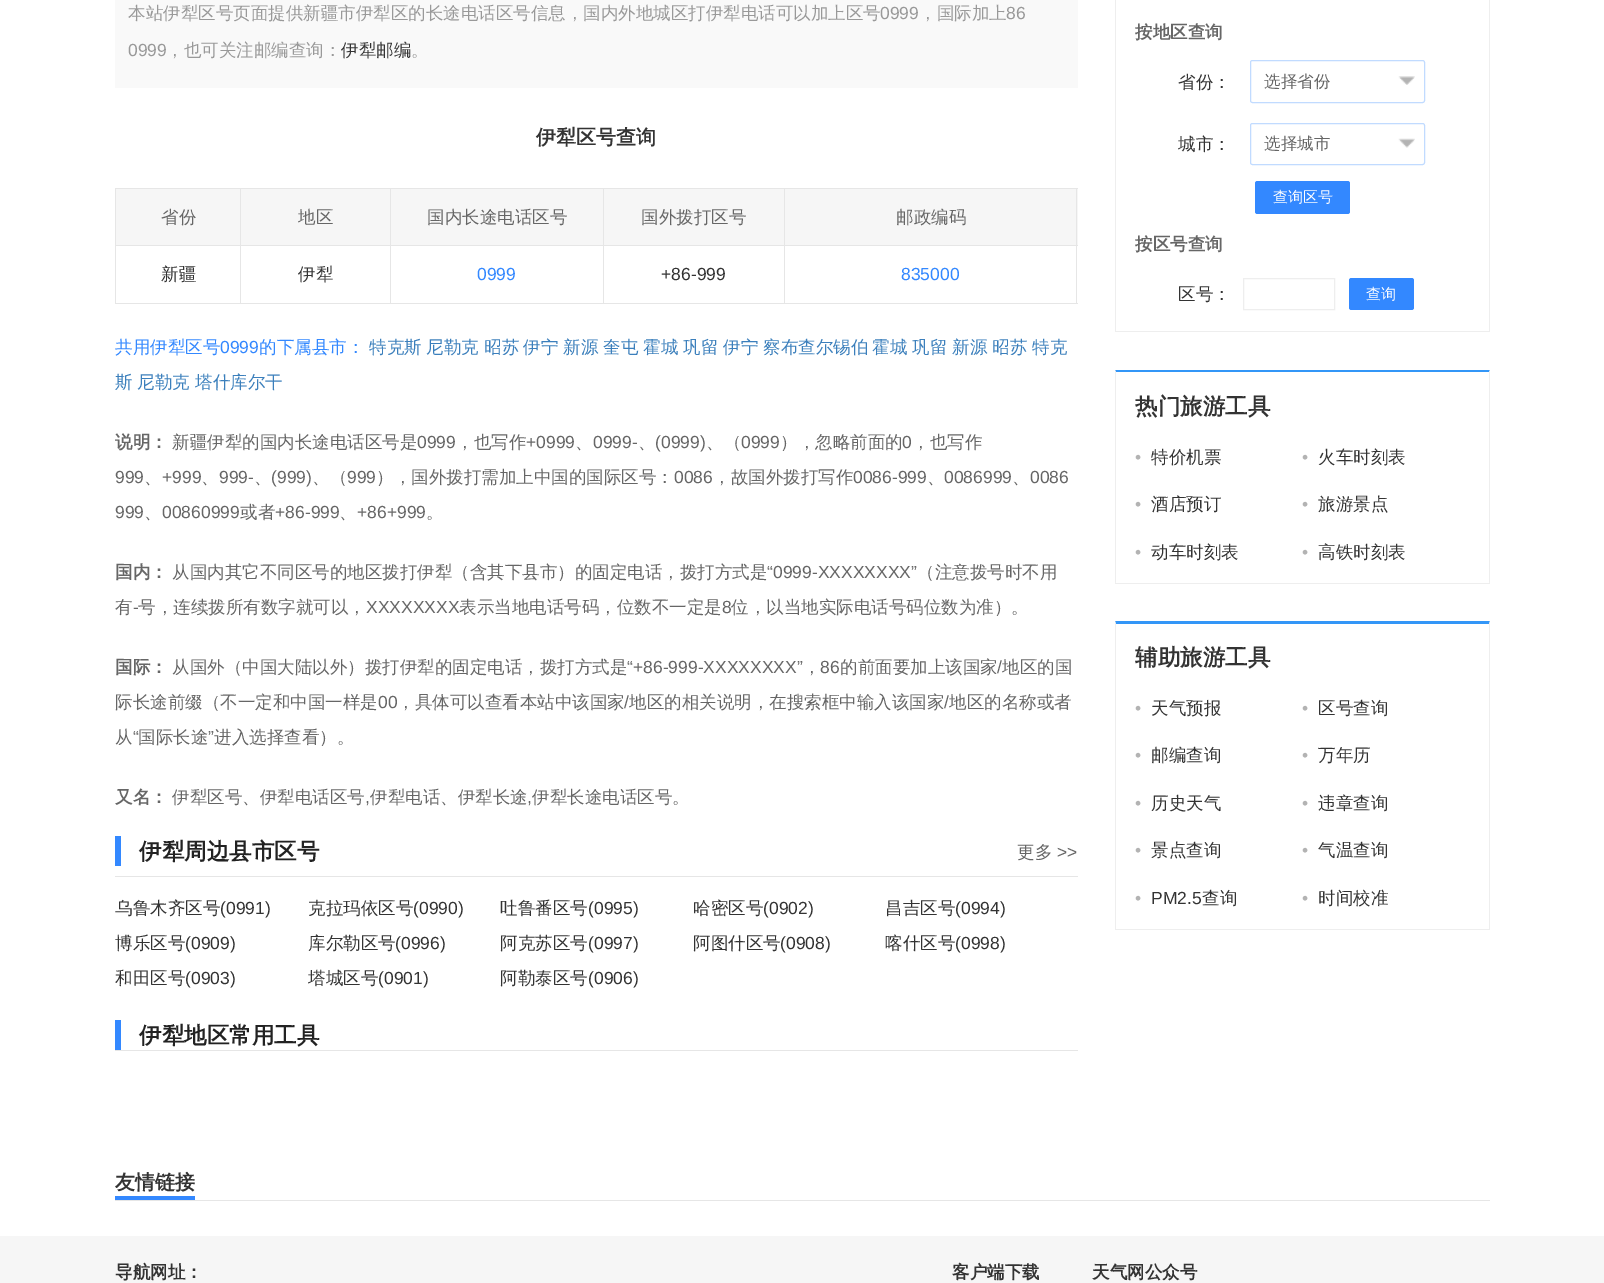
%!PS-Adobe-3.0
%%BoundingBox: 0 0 1604 1283
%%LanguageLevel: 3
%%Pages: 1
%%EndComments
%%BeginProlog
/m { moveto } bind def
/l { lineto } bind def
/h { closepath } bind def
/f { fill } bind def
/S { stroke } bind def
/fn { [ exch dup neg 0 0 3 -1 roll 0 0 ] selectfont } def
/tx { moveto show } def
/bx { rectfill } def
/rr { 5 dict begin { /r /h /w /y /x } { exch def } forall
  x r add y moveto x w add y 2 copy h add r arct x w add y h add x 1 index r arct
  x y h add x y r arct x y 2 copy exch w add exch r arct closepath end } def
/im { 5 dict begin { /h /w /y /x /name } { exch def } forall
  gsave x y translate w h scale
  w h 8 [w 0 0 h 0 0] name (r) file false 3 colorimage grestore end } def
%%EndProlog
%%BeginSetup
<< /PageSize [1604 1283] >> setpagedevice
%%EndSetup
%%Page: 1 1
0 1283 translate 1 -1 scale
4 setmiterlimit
1 setgray
0 0 1604 1283 bx
0.976 setgray
115 0 963 88 bx
/WenQuanYiZenHei-Medium 17.5 fn
0.6 setgray
(本站伊犁区号页面提供新疆市伊犁区的长途电话区号信息，国内外地城区打伊犁电话可以加上区号) 128 19 tx
/LiberationSans-Regular 17.5 fn
(0999) 880 19 tx
/WenQuanYiZenHei-Medium 17.5 fn
(，国际加上) 919 19 tx
/LiberationSans-Regular 17.5 fn
(86) 1006 19 tx
(0999) 128 56 tx
/WenQuanYiZenHei-Medium 17.5 fn
(，也可关注邮编查询：) 166 56 tx
0.2 setgray
(伊犁邮编) 341 56 tx
0.6 setgray
(。) 411 56 tx
/WenQuanYiZenHei-Bold 20 fn
0.2 setgray
(伊犁区号查询) 536 144 tx
0.902 setgray
115 188 963 1 bx
115 188 1 116 bx
0.965 setgray
116 189 962 56 bx
0.902 setgray
116 245 962 1 bx
240 189 1 56 bx
/WenQuanYiZenHei-Medium 17.5 fn
0.4 setgray
(省份) 161 223 tx
0.902 setgray
390 189 1 56 bx
0.4 setgray
(地区) 298 223 tx
0.902 setgray
603 189 1 56 bx
0.4 setgray
(国内长途电话区号) 427 223 tx
0.902 setgray
784 189 1 56 bx
0.4 setgray
(国外拨打区号) 641 223 tx
0.902 setgray
1076 189 1 56 bx
0.4 setgray
(邮政编码) 896 223 tx
0.902 setgray
116 303 962 1 bx
240 246 1 57 bx
0.2 setgray
(新疆) 161 280 tx
0.902 setgray
390 246 1 57 bx
0.2 setgray
(伊犁) 298 280 tx
0.902 setgray
603 246 1 57 bx
/LiberationSans-Regular 17.5 fn
0.2 0.533 1 setrgbcolor
(0999) 477 280 tx
0.902 setgray
784 246 1 57 bx
0.2 setgray
(+86-999) 661 280 tx
0.902 setgray
1076 246 1 57 bx
0.2 0.533 1 setrgbcolor
(835000) 901 280 tx
/WenQuanYiZenHei-Medium 17.5 fn
(共用伊犁区号) 115 353 tx
/LiberationSans-Regular 17.5 fn
(0999) 220 353 tx
/WenQuanYiZenHei-Medium 17.5 fn
(的下属县市：) 259 353 tx
0.231 0.498 0.737 setrgbcolor
(特克斯) 369 353 tx
(尼勒克) 426 353 tx
(昭苏) 484 353 tx
(伊宁) 523 353 tx
(新源) 563 353 tx
(奎屯) 603 353 tx
(霍城) 643 353 tx
(巩留) 683 353 tx
(伊宁) 723 353 tx
(察布查尔锡伯) 763 353 tx
(霍城) 872 353 tx
(巩留) 912 353 tx
(新源) 952 353 tx
(昭苏) 992 353 tx
(特克) 1032 353 tx
(斯) 115 388 tx
(尼勒克) 137 388 tx
(塔什库尔干) 195 388 tx
/WenQuanYiZenHei-Bold 17.5 fn
0.4 setgray
(说明：) 115 448 tx
/WenQuanYiZenHei-Medium 17.5 fn
(新疆伊犁的国内长途电话区号是) 172 448 tx
/LiberationSans-Regular 17.5 fn
(0999) 417 448 tx
/WenQuanYiZenHei-Medium 17.5 fn
(，也写作) 456 448 tx
/LiberationSans-Regular 17.5 fn
(+0999) 526 448 tx
/WenQuanYiZenHei-Medium 17.5 fn
(、) 575 448 tx
/LiberationSans-Regular 17.5 fn
(0999-) 593 448 tx
/WenQuanYiZenHei-Medium 17.5 fn
(、) 638 448 tx
/LiberationSans-Regular 17.5 fn
(\(0999\)) 655 448 tx
/WenQuanYiZenHei-Medium 17.5 fn
(、（) 706 448 tx
/LiberationSans-Regular 17.5 fn
(0999) 741 448 tx
/WenQuanYiZenHei-Medium 17.5 fn
(），忽略前面的) 780 448 tx
/LiberationSans-Regular 17.5 fn
(0) 902 448 tx
/WenQuanYiZenHei-Medium 17.5 fn
(，也写作) 912 448 tx
/LiberationSans-Regular 17.5 fn
(999) 115 483 tx
/WenQuanYiZenHei-Medium 17.5 fn
(、) 144 483 tx
/LiberationSans-Regular 17.5 fn
(+999) 162 483 tx
/WenQuanYiZenHei-Medium 17.5 fn
(、) 201 483 tx
/LiberationSans-Regular 17.5 fn
(999-) 219 483 tx
/WenQuanYiZenHei-Medium 17.5 fn
(、) 254 483 tx
/LiberationSans-Regular 17.5 fn
(\(999\)) 271 483 tx
/WenQuanYiZenHei-Medium 17.5 fn
(、（) 312 483 tx
/LiberationSans-Regular 17.5 fn
(999) 347 483 tx
/WenQuanYiZenHei-Medium 17.5 fn
(），国外拨打需加上中国的国际区号：) 376 483 tx
/LiberationSans-Regular 17.5 fn
(0086) 674 483 tx
/WenQuanYiZenHei-Medium 17.5 fn
(，故国外拨打写作) 713 483 tx
/LiberationSans-Regular 17.5 fn
(0086-999) 853 483 tx
/WenQuanYiZenHei-Medium 17.5 fn
(、) 927 483 tx
/LiberationSans-Regular 17.5 fn
(0086999) 944 483 tx
/WenQuanYiZenHei-Medium 17.5 fn
(、) 1012 483 tx
/LiberationSans-Regular 17.5 fn
(0086) 1030 483 tx
(999) 115 518 tx
/WenQuanYiZenHei-Medium 17.5 fn
(、) 144 518 tx
/LiberationSans-Regular 17.5 fn
(00860999) 162 518 tx
/WenQuanYiZenHei-Medium 17.5 fn
(或者) 240 518 tx
/LiberationSans-Regular 17.5 fn
(+86-999) 275 518 tx
/WenQuanYiZenHei-Medium 17.5 fn
(、) 339 518 tx
/LiberationSans-Regular 17.5 fn
(+86+999) 357 518 tx
/WenQuanYiZenHei-Medium 17.5 fn
(。) 426 518 tx
/WenQuanYiZenHei-Bold 17.5 fn
(国内：) 115 578 tx
/WenQuanYiZenHei-Medium 17.5 fn
(从国内其它不同区号的地区拨打伊犁（含其下县市）的固定电话，拨打方式是) 172 578 tx
/LiberationSans-Regular 17.5 fn
(“0999-XXXXXXXX”) 767 578 tx
/WenQuanYiZenHei-Medium 17.5 fn
(（注意拨号时不用) 917 578 tx
(有) 115 613 tx
/LiberationSans-Regular 17.5 fn
(-) 133 613 tx
/WenQuanYiZenHei-Medium 17.5 fn
(号，连续拨所有数字就可以，) 138 613 tx
/LiberationSans-Regular 17.5 fn
(XXXXXXXX) 366 613 tx
/WenQuanYiZenHei-Medium 17.5 fn
(表示当地电话号码，位数不一定是) 459 613 tx
/LiberationSans-Regular 17.5 fn
(8) 722 613 tx
/WenQuanYiZenHei-Medium 17.5 fn
(位，以当地实际电话号码位数为准）。) 731 613 tx
/WenQuanYiZenHei-Bold 17.5 fn
(国际：) 115 673 tx
/WenQuanYiZenHei-Medium 17.5 fn
(从国外（中国大陆以外）拨打伊犁的固定电话，拨打方式是) 172 673 tx
/LiberationSans-Regular 17.5 fn
(“+86-999-XXXXXXXX”) 627 673 tx
/WenQuanYiZenHei-Medium 17.5 fn
(，) 803 673 tx
/LiberationSans-Regular 17.5 fn
(86) 820 673 tx
/WenQuanYiZenHei-Medium 17.5 fn
(的前面要加上该国家) 840 673 tx
/LiberationSans-Regular 17.5 fn
(/) 997 673 tx
/WenQuanYiZenHei-Medium 17.5 fn
(地区的国) 1002 673 tx
(际长途前缀（不一定和中国一样是) 115 708 tx
/LiberationSans-Regular 17.5 fn
(00) 378 708 tx
/WenQuanYiZenHei-Medium 17.5 fn
(，具体可以查看本站中该国家) 397 708 tx
/LiberationSans-Regular 17.5 fn
(/) 624 708 tx
/WenQuanYiZenHei-Medium 17.5 fn
(地区的相关说明，在搜索框中输入该国家) 629 708 tx
/LiberationSans-Regular 17.5 fn
(/) 944 708 tx
/WenQuanYiZenHei-Medium 17.5 fn
(地区的名称或者) 949 708 tx
(从) 115 743 tx
/LiberationSans-Regular 17.5 fn
(“) 133 743 tx
/WenQuanYiZenHei-Medium 17.5 fn
(国际长途) 138 743 tx
/LiberationSans-Regular 17.5 fn
(”) 208 743 tx
/WenQuanYiZenHei-Medium 17.5 fn
(进入选择查看）。) 214 743 tx
/WenQuanYiZenHei-Bold 17.5 fn
(又名：) 115 803 tx
/WenQuanYiZenHei-Medium 17.5 fn
(伊犁区号、伊犁电话区号) 172 803 tx
/LiberationSans-Regular 17.5 fn
(,) 365 803 tx
/WenQuanYiZenHei-Medium 17.5 fn
(伊犁电话、伊犁长途) 370 803 tx
/LiberationSans-Regular 17.5 fn
(,) 527 803 tx
/WenQuanYiZenHei-Medium 17.5 fn
(伊犁长途电话区号。) 532 803 tx
0.902 setgray
115 876 963 1 bx
0.2 0.533 1 setrgbcolor
115 836 6 30 bx
/WenQuanYiZenHei-Bold 22.5 fn
0.133 setgray
(伊犁周边县市区号) 139 859 tx
/WenQuanYiZenHei-Medium 17.5 fn
0.4 setgray
(更多) 1017 858 tx
/LiberationSans-Regular 17.5 fn
(>>) 1057 858 tx
/WenQuanYiZenHei-Medium 17.5 fn
0.2 setgray
(乌鲁木齐区号) 115 914 tx
/LiberationSans-Regular 17.5 fn
(\(0991\)) 220 914 tx
/WenQuanYiZenHei-Medium 17.5 fn
(克拉玛依区号) 308 914 tx
/LiberationSans-Regular 17.5 fn
(\(0990\)) 413 914 tx
/WenQuanYiZenHei-Medium 17.5 fn
(吐鲁番区号) 500 914 tx
/LiberationSans-Regular 17.5 fn
(\(0995\)) 588 914 tx
/WenQuanYiZenHei-Medium 17.5 fn
(哈密区号) 693 914 tx
/LiberationSans-Regular 17.5 fn
(\(0902\)) 763 914 tx
/WenQuanYiZenHei-Medium 17.5 fn
(昌吉区号) 885 914 tx
/LiberationSans-Regular 17.5 fn
(\(0994\)) 955 914 tx
/WenQuanYiZenHei-Medium 17.5 fn
(博乐区号) 115 949 tx
/LiberationSans-Regular 17.5 fn
(\(0909\)) 185 949 tx
/WenQuanYiZenHei-Medium 17.5 fn
(库尔勒区号) 308 949 tx
/LiberationSans-Regular 17.5 fn
(\(0996\)) 395 949 tx
/WenQuanYiZenHei-Medium 17.5 fn
(阿克苏区号) 500 949 tx
/LiberationSans-Regular 17.5 fn
(\(0997\)) 588 949 tx
/WenQuanYiZenHei-Medium 17.5 fn
(阿图什区号) 693 949 tx
/LiberationSans-Regular 17.5 fn
(\(0908\)) 780 949 tx
/WenQuanYiZenHei-Medium 17.5 fn
(喀什区号) 885 949 tx
/LiberationSans-Regular 17.5 fn
(\(0998\)) 955 949 tx
/WenQuanYiZenHei-Medium 17.5 fn
(和田区号) 115 984 tx
/LiberationSans-Regular 17.5 fn
(\(0903\)) 185 984 tx
/WenQuanYiZenHei-Medium 17.5 fn
(塔城区号) 308 984 tx
/LiberationSans-Regular 17.5 fn
(\(0901\)) 378 984 tx
/WenQuanYiZenHei-Medium 17.5 fn
(阿勒泰区号) 500 984 tx
/LiberationSans-Regular 17.5 fn
(\(0906\)) 588 984 tx
0.902 setgray
115 1050 963 1 bx
0.2 0.533 1 setrgbcolor
115 1020 6 30 bx
/WenQuanYiZenHei-Bold 22.5 fn
0.133 setgray
(伊犁地区常用工具) 139 1043 tx
0.933 setgray
1490 -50 m 1490 332 l 1489 331 l 1489 -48 l h f
1115 331 375 1 bx
1115 332 m 1115 -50 l 1116 -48 l 1116 331 l h f
/WenQuanYiZenHei-Bold 17.5 fn
0.4 setgray
(按地区查询) 1135 38 tx
/WenQuanYiZenHei-Medium 17.5 fn
0.2 setgray
(省份：) 1178 88 tx
0.757 0.859 1 setrgbcolor
1250.5 60.5 174 42 2 rr S
/WenQuanYiZenHei-Medium 16.5 fn
0.4 setgray
(选择省份) 1264 87 tx
(image0.raw) 1398 76 17 9 im
/WenQuanYiZenHei-Medium 17.5 fn
0.2 setgray
(城市：) 1178 150 tx
0.757 0.859 1 setrgbcolor
1250.5 123.5 174 41 2 rr S
/WenQuanYiZenHei-Medium 16.5 fn
0.4 setgray
(选择城市) 1264 149 tx
(image1.raw) 1398 138 17 10 im
0.2 0.533 1 setrgbcolor
1255 181 95 33 2.5 rr f
/WenQuanYiZenHei-Medium 15 fn
1 setgray
(查询区号) 1273 202 tx
/WenQuanYiZenHei-Bold 17.5 fn
0.4 setgray
(按区号查询) 1135 250 tx
/WenQuanYiZenHei-Medium 17.5 fn
0.2 setgray
(区号：) 1178 300 tx
0.933 setgray
1243.5 278.5 91 31 rectstroke
0.2 0.533 1 setrgbcolor
1349 278 65 32 2.5 rr f
/WenQuanYiZenHei-Medium 15 fn
1 setgray
(查询) 1366 299 tx
0.2 0.588 0.969 setrgbcolor
1115 370 m 1490 370 l 1489 372 l 1116 372 l h f
0.933 setgray
1490 370 m 1490 584 l 1489 582 l 1489 372 l h f
1115 583 375 1 bx
1115 584 m 1115 370 l 1116 372 l 1116 582 l h f
/WenQuanYiZenHei-Bold 22.5 fn
0.2 setgray
(热门旅游工具) 1135 414 tx
/LiberationSans-Regular 17.5 fn
0.702 setgray
(•) 1135 463 tx
/WenQuanYiZenHei-Medium 17.5 fn
0.2 setgray
(特价机票) 1151 463 tx
/LiberationSans-Regular 17.5 fn
0.702 setgray
(•) 1302 463 tx
/WenQuanYiZenHei-Medium 17.5 fn
0.2 setgray
(火车时刻表) 1318 463 tx
/LiberationSans-Regular 17.5 fn
0.702 setgray
(•) 1135 510 tx
/WenQuanYiZenHei-Medium 17.5 fn
0.2 setgray
(酒店预订) 1151 510 tx
/LiberationSans-Regular 17.5 fn
0.702 setgray
(•) 1302 510 tx
/WenQuanYiZenHei-Medium 17.5 fn
0.2 setgray
(旅游景点) 1318 510 tx
/LiberationSans-Regular 17.5 fn
0.702 setgray
(•) 1135 558 tx
/WenQuanYiZenHei-Medium 17.5 fn
0.2 setgray
(动车时刻表) 1151 558 tx
/LiberationSans-Regular 17.5 fn
0.702 setgray
(•) 1302 558 tx
/WenQuanYiZenHei-Medium 17.5 fn
0.2 setgray
(高铁时刻表) 1318 558 tx
0.2 0.588 0.969 setrgbcolor
1115 621 m 1490 621 l 1489 624 l 1116 624 l h f
0.933 setgray
1490 621 m 1490 930 l 1489 929 l 1489 624 l h f
1115 929 375 1 bx
1115 930 m 1115 621 l 1116 624 l 1116 929 l h f
/WenQuanYiZenHei-Bold 22.5 fn
0.2 setgray
(辅助旅游工具) 1135 665 tx
/LiberationSans-Regular 17.5 fn
0.702 setgray
(•) 1135 714 tx
/WenQuanYiZenHei-Medium 17.5 fn
0.2 setgray
(天气预报) 1151 714 tx
/LiberationSans-Regular 17.5 fn
0.702 setgray
(•) 1302 714 tx
/WenQuanYiZenHei-Medium 17.5 fn
0.2 setgray
(区号查询) 1318 714 tx
/LiberationSans-Regular 17.5 fn
0.702 setgray
(•) 1135 761 tx
/WenQuanYiZenHei-Medium 17.5 fn
0.2 setgray
(邮编查询) 1151 761 tx
/LiberationSans-Regular 17.5 fn
0.702 setgray
(•) 1302 761 tx
/WenQuanYiZenHei-Medium 17.5 fn
0.2 setgray
(万年历) 1318 761 tx
/LiberationSans-Regular 17.5 fn
0.702 setgray
(•) 1135 809 tx
/WenQuanYiZenHei-Medium 17.5 fn
0.2 setgray
(历史天气) 1151 809 tx
/LiberationSans-Regular 17.5 fn
0.702 setgray
(•) 1302 809 tx
/WenQuanYiZenHei-Medium 17.5 fn
0.2 setgray
(违章查询) 1318 809 tx
/LiberationSans-Regular 17.5 fn
0.702 setgray
(•) 1135 856 tx
/WenQuanYiZenHei-Medium 17.5 fn
0.2 setgray
(景点查询) 1151 856 tx
/LiberationSans-Regular 17.5 fn
0.702 setgray
(•) 1302 856 tx
/WenQuanYiZenHei-Medium 17.5 fn
0.2 setgray
(气温查询) 1318 856 tx
/LiberationSans-Regular 17.5 fn
0.702 setgray
(•) 1135 904 tx
0.2 setgray
(PM2.5) 1151 904 tx
/WenQuanYiZenHei-Medium 17.5 fn
(查询) 1202 904 tx
/LiberationSans-Regular 17.5 fn
0.702 setgray
(•) 1302 904 tx
/WenQuanYiZenHei-Medium 17.5 fn
0.2 setgray
(时间校准) 1318 904 tx
0.902 setgray
115 1200 1375 1 bx
0.2 0.533 1 setrgbcolor
115 1196 80 4 bx
/WenQuanYiZenHei-Bold 20 fn
0.2 setgray
(友情链接) 115 1189 tx
0.965 setgray
0 1236 1604 47 bx
/WenQuanYiZenHei-Bold 17.5 fn
0.2 setgray
(导航网址：) 115 1278 tx
(客户端下载) 952 1278 tx
(天气网公众号) 1092 1278 tx
showpage
%%EOF
